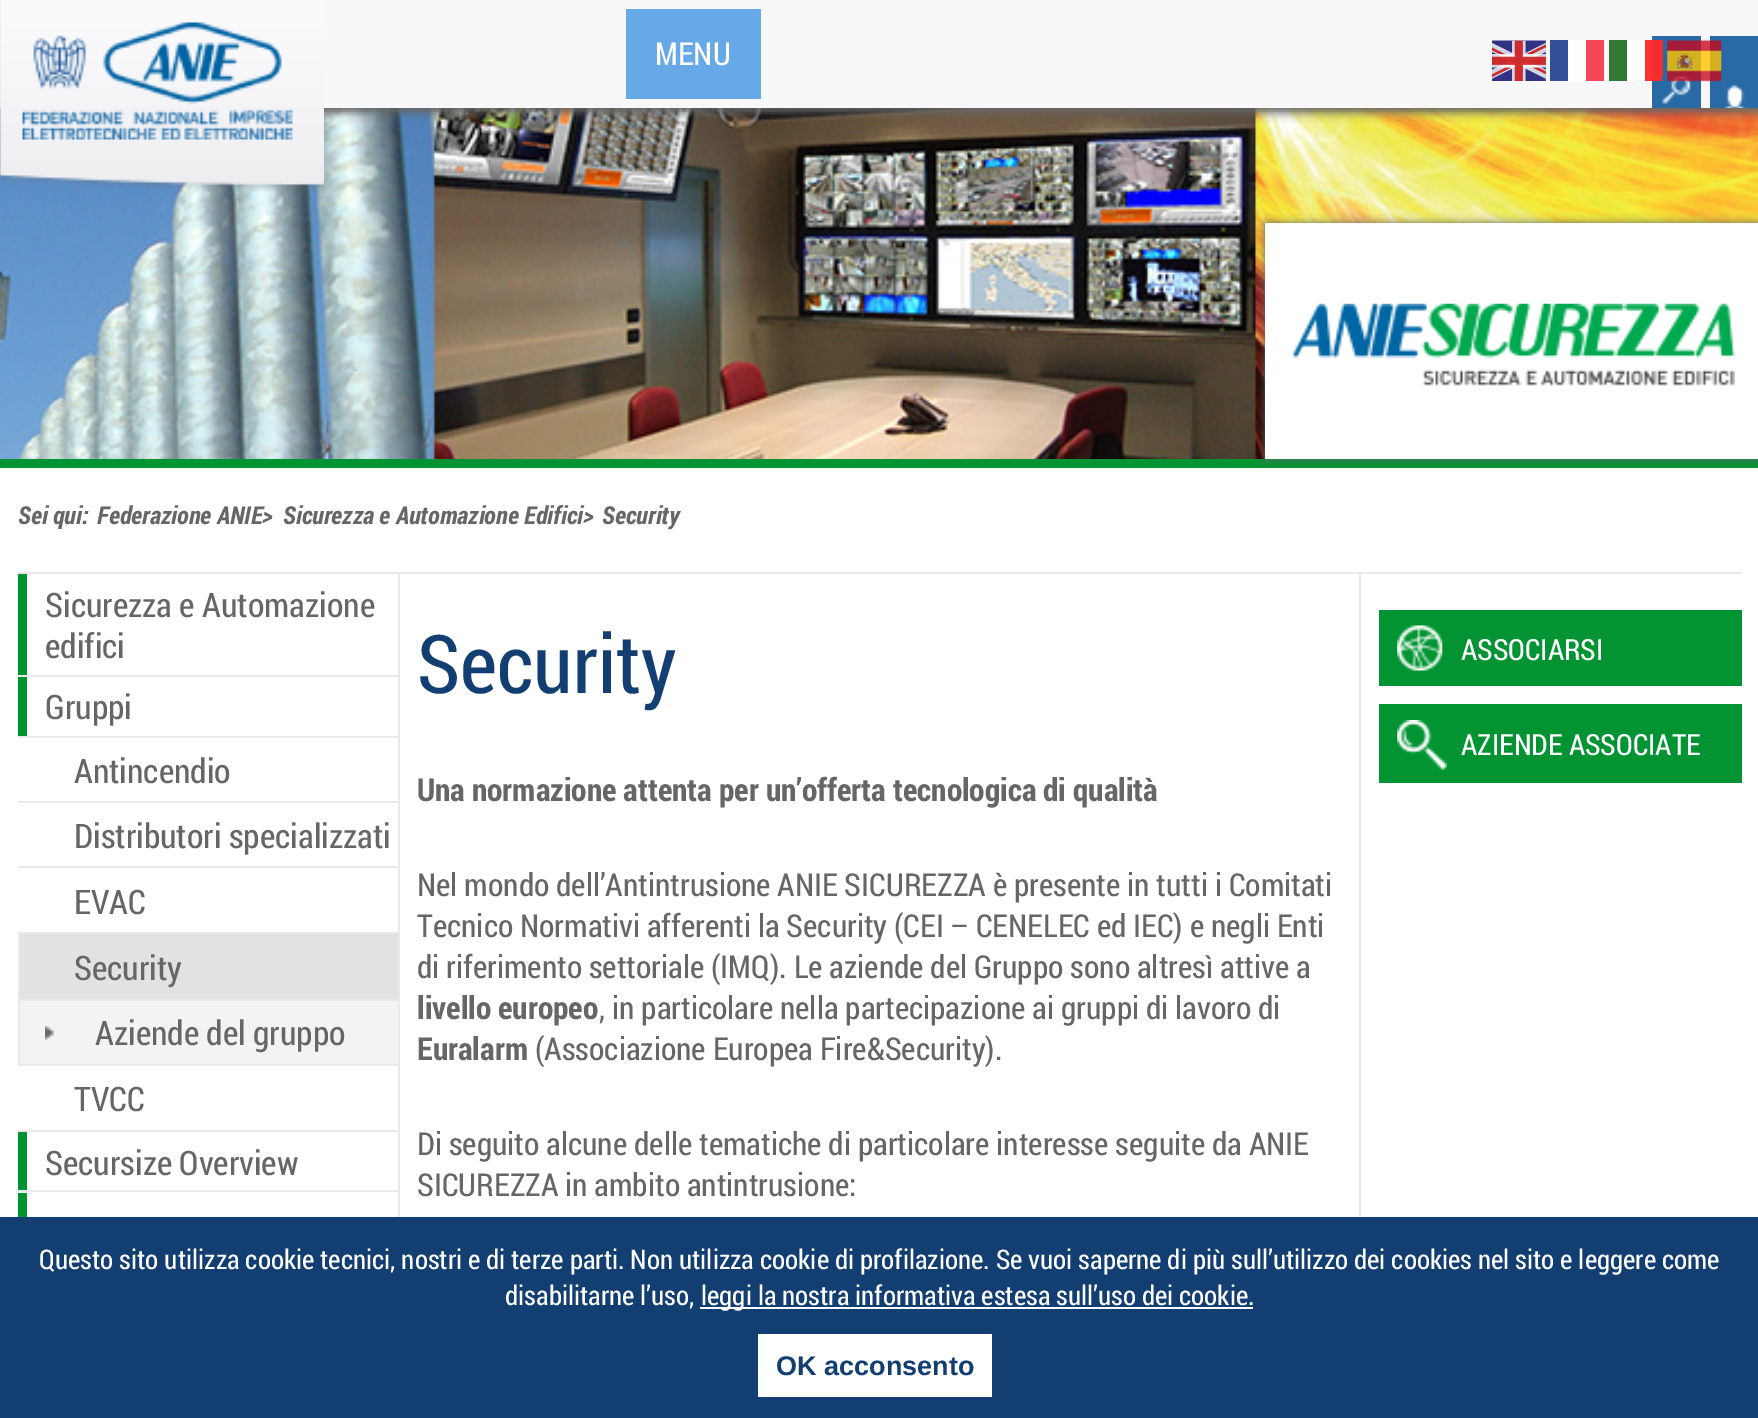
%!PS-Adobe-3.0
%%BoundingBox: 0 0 1758 1418
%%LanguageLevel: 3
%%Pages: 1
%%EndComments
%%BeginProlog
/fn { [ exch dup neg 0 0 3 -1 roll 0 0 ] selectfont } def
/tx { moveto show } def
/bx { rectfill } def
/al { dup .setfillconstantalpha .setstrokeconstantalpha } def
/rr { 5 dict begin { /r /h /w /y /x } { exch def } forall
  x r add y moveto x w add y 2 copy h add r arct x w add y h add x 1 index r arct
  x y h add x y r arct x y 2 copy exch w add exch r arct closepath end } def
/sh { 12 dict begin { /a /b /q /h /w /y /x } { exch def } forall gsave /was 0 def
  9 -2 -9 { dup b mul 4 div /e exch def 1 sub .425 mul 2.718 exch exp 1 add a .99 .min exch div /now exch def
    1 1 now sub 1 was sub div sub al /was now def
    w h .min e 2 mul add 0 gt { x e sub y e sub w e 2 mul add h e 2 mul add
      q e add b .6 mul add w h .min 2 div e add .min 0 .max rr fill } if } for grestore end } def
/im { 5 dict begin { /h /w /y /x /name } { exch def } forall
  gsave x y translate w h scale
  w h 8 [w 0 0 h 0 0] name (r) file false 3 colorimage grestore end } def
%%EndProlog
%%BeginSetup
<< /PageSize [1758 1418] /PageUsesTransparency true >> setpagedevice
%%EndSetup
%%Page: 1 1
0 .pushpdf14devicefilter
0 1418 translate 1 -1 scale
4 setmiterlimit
1 setgray
0 0 1758 1418 bx
(image6.raw) 0 108 1758 351 im
0.4 setgray
5 5 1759 108 0 4.5 1 sh
0.973 0.973 0.984 setrgbcolor
0 0 1758 108 bx
0.996 setgray
1627 40 18 41 bx
0.988 0.2 0.2 setrgbcolor
1645 40 7 41 bx
(image0.raw) 0 0 324 192 im
(image1.raw) 22 22 271 118 im
0.404 0.663 0.902 setrgbcolor
626 9 135 90 bx
/RobotoCondensed-Regular 31.5 fn
1 setgray
(MENU) 655 65 tx
0.157 0.416 0.651 setrgbcolor
1652 36 49 72 bx
0.957 0.176 0.184 setrgbcolor
1652 40 11 41 bx
(image2.raw) 1662 76 29 29 im
0.157 0.416 0.651 setrgbcolor
1710 36 48 72 bx
(image3.raw) 1723 85 23 23 im
(image4.raw) 1492 40 54 41 im
0.196 0.314 0.596 setrgbcolor
1550 40 18 41 bx
0.996 setgray
1568 40 18 41 bx
0.957 0.271 0.349 setrgbcolor
1586 40 18 41 bx
0.196 0.467 0.196 setrgbcolor
1609 40 18 41 bx
(image5.raw) 1667 39 55 43 im
0.008 0.58 0.196 setrgbcolor
0 459 1758 9 bx
0.4 setgray
1265 223 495 236 0 4.5 1 sh
1 setgray
1265 223 493 236 bx
(image7.raw) 1293 303 442 83 im
/RobotoCondensed-BoldItalic 24.75 fn
0.4 setgray
(Sei qui:) 18 524 tx
(Federazione ANIE>) 97 524 tx
(Sicurezza e Automazione Edifici>) 283 524 tx
(Security) 602 524 tx
0.914 setgray
18 572 1724 2 bx
0.008 0.58 0.196 setrgbcolor
18 574 9 101 bx
/RobotoCondensed-Regular 33.75 fn
0.4 setgray
(Sicurezza e Automazione) 45 617 tx
(edifici) 45 658 tx
0.914 setgray
18 675 380 2 bx
0.008 0.58 0.196 setrgbcolor
18 677 9 59 bx
0.4 setgray
(Gruppi) 45 719 tx
0.914 setgray
18 736 380 2 bx
0.4 setgray
(Antincendio) 74 783 tx
0.914 setgray
18 801 380 2 bx
0.4 setgray
(Distributori specializzati) 74 848 tx
0.914 setgray
18 866 380 2 bx
0.4 setgray
(EVAC) 74 914 tx
0.914 setgray
18 932 380 2 bx
0.89 0.886 0.886 setrgbcolor
20 934 378 65 bx
0.914 setgray
18 934 2 130 bx
0.4 setgray
(Security) 74 980 tx
0.953 setgray
20 1001 378 63 bx
0.914 setgray
20 999 378 2 bx
(image8.raw) 45 1026 9 14 im
0.4 setgray
(Aziende del gruppo) 95 1045 tx
0.914 setgray
18 1064 380 2 bx
0.4 setgray
(TVCC) 74 1111 tx
0.914 setgray
18 1130 380 2 bx
0.008 0.58 0.196 setrgbcolor
18 1132 9 58 bx
0.4 setgray
(Secursize Overview) 45 1175 tx
0.914 setgray
18 1190 380 2 bx
0.008 0.58 0.196 setrgbcolor
18 1193 9 24 bx
0.914 setgray
1359 574 2 643 bx
398 574 2 643 bx
/RobotoCondensed-Regular 81 fn
0.075 0.243 0.443 setrgbcolor
(Security) 417 693 tx
/RobotoCondensed-Bold 31.5 fn
0.4 setgray
(Una normazione attenta per un’offerta tecnologica di qualità) 417 801 tx
/RobotoCondensed-Regular 31.5 fn
(Nel mondo dell’Antintrusione ANIE SICUREZZA è presente in tutti i Comitati) 417 896 tx
(Tecnico Normativi afferenti la Security \(CEI – CENELEC ed IEC\) e negli Enti) 417 937 tx
(di riferimento settoriale \(IMQ\). Le aziende del Gruppo sono altresì attive a) 417 978 tx
/RobotoCondensed-Bold 31.5 fn
(livello europeo) 417 1019 tx
/RobotoCondensed-Regular 31.5 fn
(, in particolare nella partecipazione ai gruppi di lavoro di) 599 1019 tx
/RobotoCondensed-Bold 31.5 fn
(Euralarm) 417 1060 tx
/RobotoCondensed-Regular 31.5 fn
(\(Associazione Europea Fire&Security\).) 535 1060 tx
(Di seguito alcune delle tematiche di particolare interesse seguite da ANIE) 417 1155 tx
(SICUREZZA in ambito antintrusione:) 417 1196 tx
0.008 0.58 0.196 setrgbcolor
1379 610 363 76 bx
(image9.raw) 1397 625 46 46 im
/RobotoCondensed-Regular 29.25 fn
1 setgray
(ASSOCIARSI) 1461 660 tx
0.008 0.58 0.196 setrgbcolor
1379 704 363 79 bx
(image10.raw) 1397 720 50 50 im
1 setgray
(AZIENDE ASSOCIATE) 1461 755 tx
0.075 0.243 0.443 setrgbcolor
0 1217 1758 201 bx
/RobotoCondensed-Regular 27 fn
1 setgray
(Questo sito utilizza cookie tecnici, nostri e di terze parti. Non utilizza cookie di profilazione. Se vuoi saperne di più sull’utilizzo dei cookies nel sito e leggere come) 39 1269 tx
(disabilitarne l’uso,) 505 1305 tx
700 1307 553 2 bx
(leggi la nostra informativa estesa sull’uso dei cookie.) 701 1305 tx
758 1334 234 63 bx
/LiberationSans-Bold 27 fn
0.075 0.243 0.443 setrgbcolor
(OK acconsento) 776 1375 tx
.poppdf14devicefilter showpage
%%EOF
